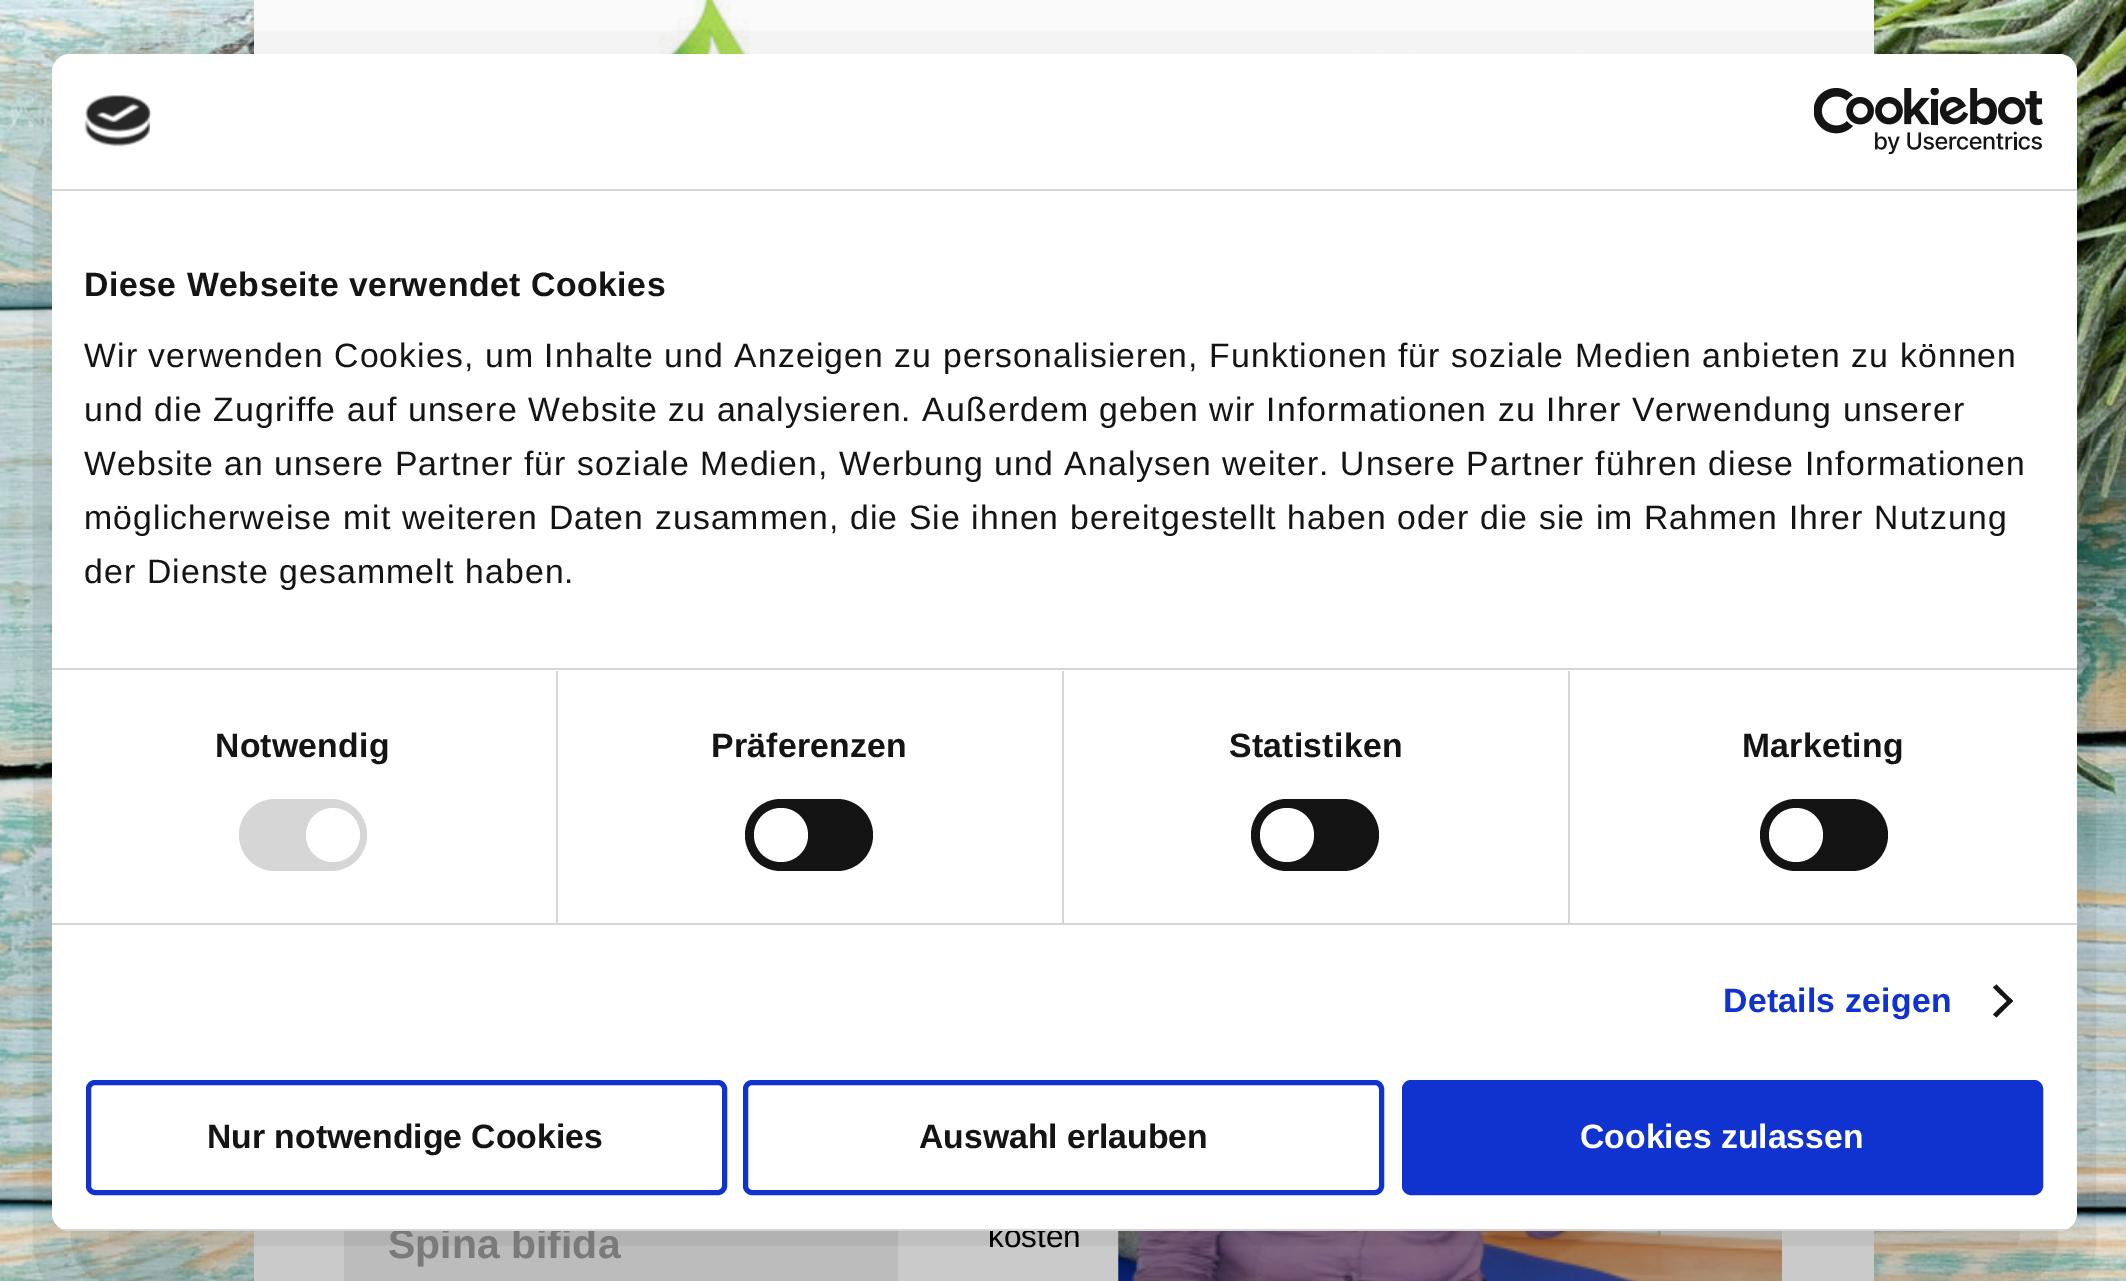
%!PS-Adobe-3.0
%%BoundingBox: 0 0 2126 1281
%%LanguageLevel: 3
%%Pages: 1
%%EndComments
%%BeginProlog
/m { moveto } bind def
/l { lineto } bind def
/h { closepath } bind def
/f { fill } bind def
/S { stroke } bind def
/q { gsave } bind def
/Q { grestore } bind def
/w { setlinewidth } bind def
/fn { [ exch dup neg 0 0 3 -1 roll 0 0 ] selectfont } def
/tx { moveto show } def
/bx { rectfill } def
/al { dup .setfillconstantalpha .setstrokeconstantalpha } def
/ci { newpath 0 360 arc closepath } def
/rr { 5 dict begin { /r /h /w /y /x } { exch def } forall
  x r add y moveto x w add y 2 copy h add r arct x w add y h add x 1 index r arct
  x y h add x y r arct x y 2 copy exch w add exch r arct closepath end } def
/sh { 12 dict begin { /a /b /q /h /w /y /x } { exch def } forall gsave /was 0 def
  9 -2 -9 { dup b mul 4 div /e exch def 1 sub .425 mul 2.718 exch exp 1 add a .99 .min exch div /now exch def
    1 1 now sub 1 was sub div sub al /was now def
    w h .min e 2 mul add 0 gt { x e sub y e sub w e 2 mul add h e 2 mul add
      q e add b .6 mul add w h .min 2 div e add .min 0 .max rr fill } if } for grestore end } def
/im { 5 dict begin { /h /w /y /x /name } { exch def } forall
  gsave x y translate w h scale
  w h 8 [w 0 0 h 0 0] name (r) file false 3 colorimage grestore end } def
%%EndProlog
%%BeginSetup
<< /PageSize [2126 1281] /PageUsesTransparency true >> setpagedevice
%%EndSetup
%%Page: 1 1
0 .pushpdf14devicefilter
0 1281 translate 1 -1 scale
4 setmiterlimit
1 setgray
0 0 2126 1281 bx
(image0.raw) 0 0 2126 1281 im
254 0 1620 1281 bx
(image3.raw) 533 0 1063 54 im
0.929 setgray
344 1231 554 50 bx
(image4.raw) 1118 1231 664 50 im
0 setgray
52 126 2025 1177 18 76.5 0.3 sh
/LiberationSans-Bold 41 fn
0.478 setgray
(Spina bifida) 388 1258 tx
/LiberationSans-Regular 31.5 fn
0 setgray
(kosten) 988 1247 tx
1 setgray
52 54 2025 1177 18 rr f
0.839 setgray
52 189 2025 2 bx
(image1.raw) 84 95 68 52 im
(image2.raw) 1814 88 229 67 im
52 668 2025 2 bx
/LiberationSans-Bold 33.75 fn
0.078 setgray
84 296 m 0.55 0 (Diese Webseite verwendet Cookies) ashow
/LiberationSans-Regular 33.75 fn
84 367 m 1.12 0 (Wir verwenden Cookies, um Inhalte und Anzeigen zu personalisieren, Funktionen für soziale Medien anbieten zu können) ashow
84 421 m 1.12 0 (und die Zugriffe auf unsere Website zu analysieren. Außerdem geben wir Informationen zu Ihrer Verwendung unserer) ashow
84 475 m 1.12 0 (Website an unsere Partner für soziale Medien, Werbung und Analysen weiter. Unsere Partner führen diese Informationen) ashow
84 529 m 1.12 0 (möglicherweise mit weiteren Daten zusammen, die Sie ihnen bereitgestellt haben oder die sie im Rahmen Ihrer Nutzung) ashow
84 583 m 1.12 0 (der Dienste gesammelt haben.) ashow
0.839 setgray
52 923 2025 2 bx
556 671 2 252 bx
/LiberationSans-Bold 33.75 fn
0.078 setgray
215 757 m 0.25 0 (Notwendig) ashow
0.839 setgray
239 799 128 72 36 rr f
1 setgray
333 835 27 ci f
0.839 setgray
1062 671 2 252 bx
0.078 setgray
711 757 m 0.25 0 (Präferenzen) ashow
745 799 128 72 36 rr f
1 setgray
781 835 27 ci f
0.839 setgray
1568 671 2 252 bx
0.078 setgray
1229 757 m 0.25 0 (Statistiken) ashow
1251 799 128 72 36 rr f
1 setgray
1287 835 27 ci f
0.078 setgray
1742 757 m 0.25 0 (Marketing) ashow
1760 799 128 72 36 rr f
1 setgray
1796 835 27 ci f
0.063 0.196 0.812 setrgbcolor
1723 1012 m 0.25 0 (Details zeigen) ashow
0.078 setgray
1996.5 984.5 m 2013 1001 l 2010 1004 l 1993 987.5 l h f
2010 998 m 2013 1001 l 1996.5 1017.5 l 1993 1014.5 l h f
q
52 54 2025 1177 18 rr clip newpath
0.839 setgray
62 1229 2005 2 bx
Q
0.063 0.196 0.812 setrgbcolor
5 w
88.5 1082.5 636 110 6.5 rr S
0.078 setgray
(Nur notwendige Cookies) 207 1148 tx
0.063 0.196 0.812 setrgbcolor
745.5 1082.5 636 110 6.5 rr S
0.078 setgray
(Auswahl erlauben) 919 1148 tx
0.063 0.196 0.812 setrgbcolor
1404.5 1082.5 636 110 6.5 rr q f Q
S
1 setgray
(Cookies zulassen) 1580 1148 tx
.poppdf14devicefilter showpage
%%EOF
